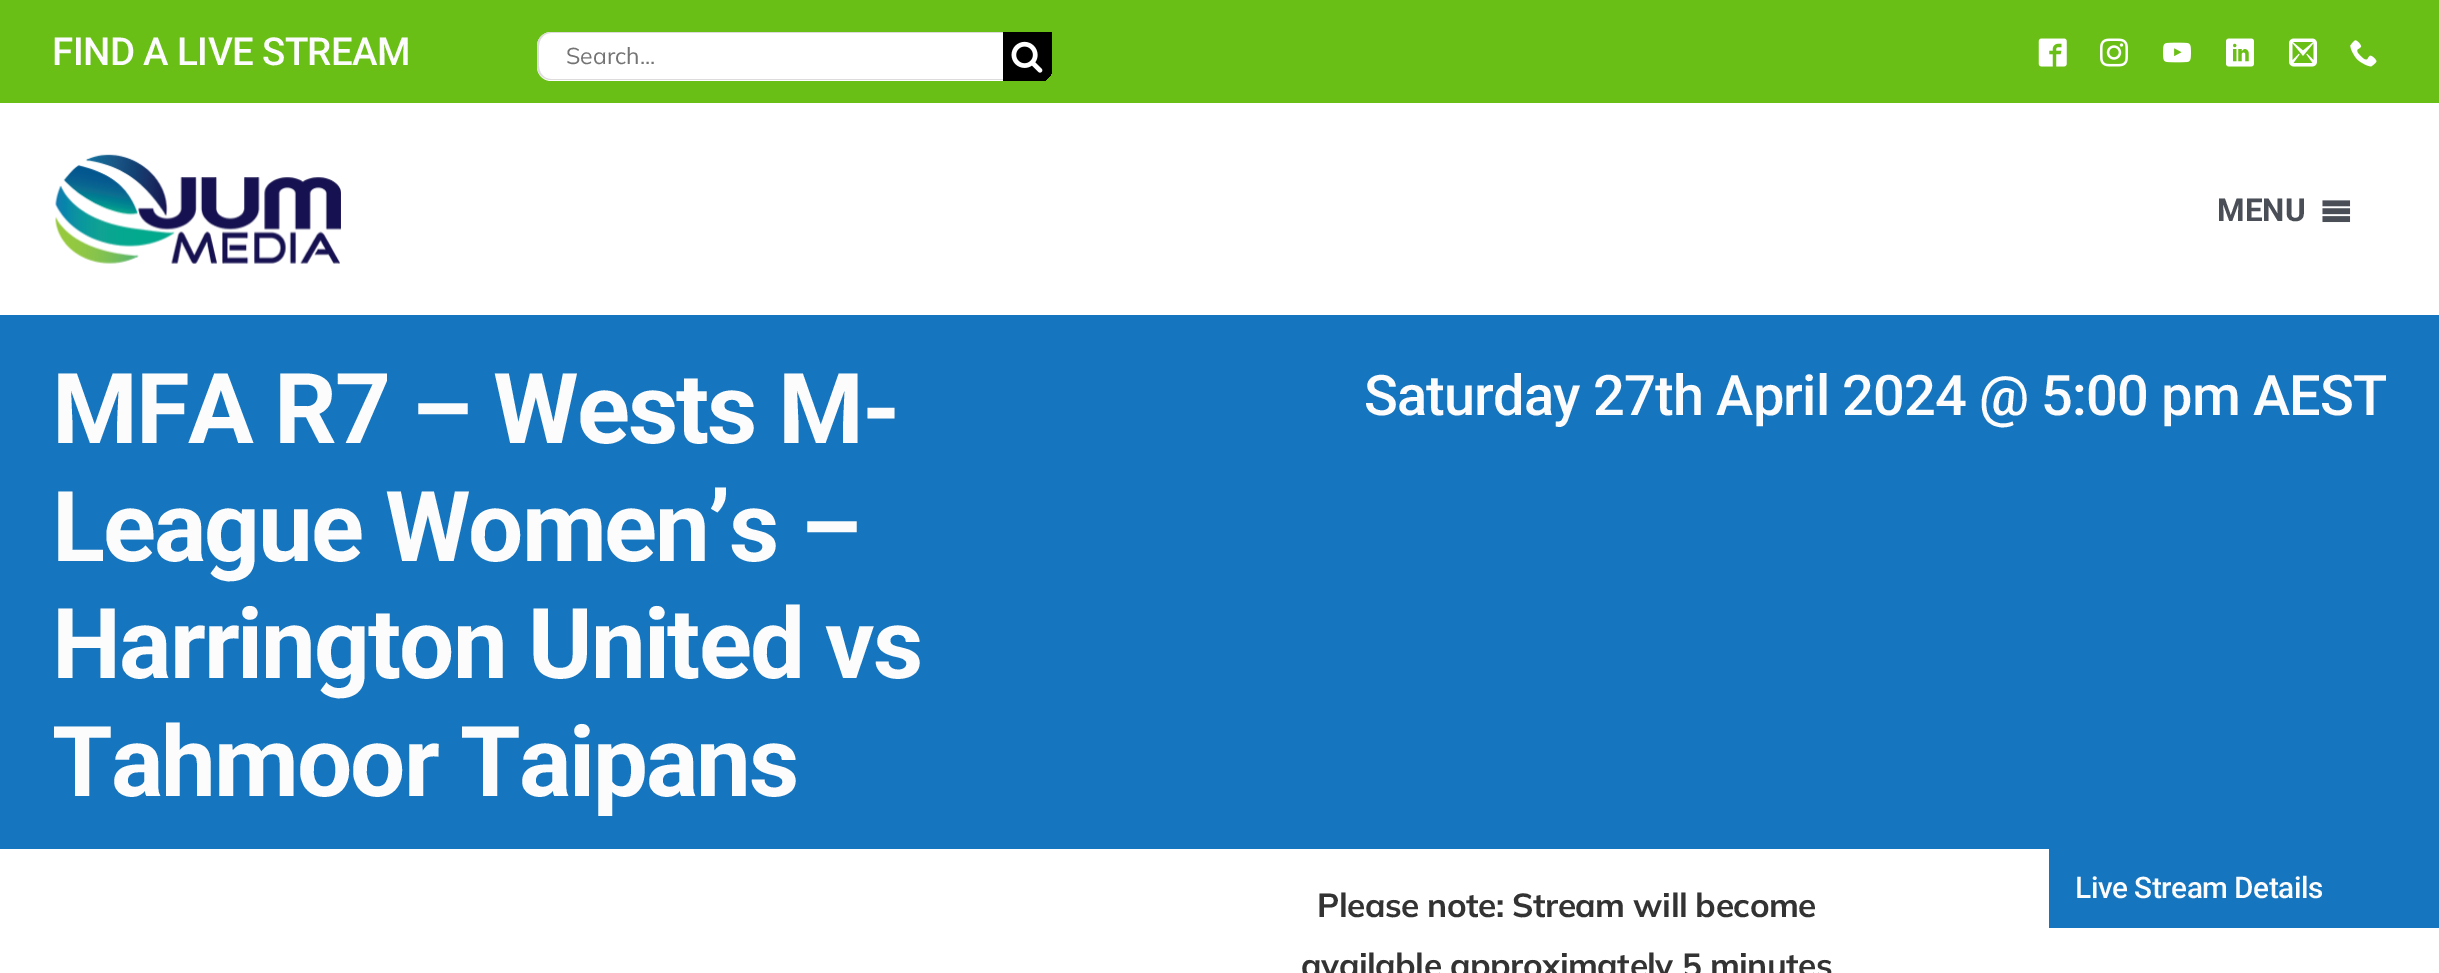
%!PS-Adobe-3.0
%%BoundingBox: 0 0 2439 973
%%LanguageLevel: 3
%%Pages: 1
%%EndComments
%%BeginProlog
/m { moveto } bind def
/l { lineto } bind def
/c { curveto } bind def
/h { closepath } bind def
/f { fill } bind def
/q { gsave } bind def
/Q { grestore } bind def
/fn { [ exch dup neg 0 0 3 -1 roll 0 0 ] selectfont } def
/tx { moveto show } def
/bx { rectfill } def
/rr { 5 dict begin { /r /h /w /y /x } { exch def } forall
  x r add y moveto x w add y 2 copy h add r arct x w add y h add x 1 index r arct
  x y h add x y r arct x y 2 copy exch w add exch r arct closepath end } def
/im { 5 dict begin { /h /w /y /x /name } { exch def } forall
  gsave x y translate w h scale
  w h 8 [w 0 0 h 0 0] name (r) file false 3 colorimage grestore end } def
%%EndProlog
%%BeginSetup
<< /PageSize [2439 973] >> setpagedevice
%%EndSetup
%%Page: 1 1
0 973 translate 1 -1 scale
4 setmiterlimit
1 setgray
0 0 2439 973 bx
0.416 0.749 0.086 setrgbcolor
0 0 2439 103 bx
/Roboto-Medium 38.5 fn
0.988 setgray
52 65 m -0.6 0 (FIND A LIVE STREAM) ashow
1 setgray
551 32 m 1003 32 l 1003 81 l 551 81 l 543.5 81 537 74.5 537 67 c 537 46 l 537 38.5 543.5 32 551 32 c h f
0.867 0.859 0.859 setrgbcolor
551 32 m 1003 32 l 1003 80 l 551 80 l 544 80 537 74 537 66 c 537 46 l 537 38 544 32 551 32 c h 551 33 m 1003 33 l 1003 79 l 551 79 l 544 79 539 73 539 66 c 539 46 l 539 39 544 33 551 33 c h eofill
/Mulish-Regular 23 fn
0.455 setgray
(Search...) 566 64 tx
q
537 23 515 59 14 rr clip newpath
0 setgray
1003 32 49 49 bx
Q
(image0.raw) 1011 41 32 32 im
(image1.raw) 2038 38 29 29 im
(image2.raw) 2100 38 28 29 im
(image3.raw) 2163 42 28 21 im
(image4.raw) 2226 38 28 29 im
(image5.raw) 2289 38 28 29 im
(image6.raw) 2350 40 27 27 im
(image7.raw) 55 154 286 110 im
/Roboto-Bold 31.5 fn
0.29 0.306 0.341 setrgbcolor
(MENU) 2217 221 tx
(image8.raw) 2322 200 29 23 im
0.086 0.459 0.749 setrgbcolor
0 315 2439 534 bx
/Roboto-Bold 98 fn
0.988 setgray
52 443 m -2 0 (MFA R7 – Wests M-) ashow
52 561 m -2 0 (League Women’s –) ashow
52 678 m -2 0 (Harrington United vs) ashow
52 796 m -2 0 (Tahmoor Taipans) ashow
/Roboto-Medium 56 fn
1364 415 m -0.85 0 (Saturday 27th April 2024 @ 5:00 pm AEST) ashow
0.086 0.459 0.749 setrgbcolor
2049 849 390 79 bx
/Roboto-Medium 29.75 fn
0.988 setgray
2075 898 m -0.5 0 (Live Stream Details) ashow
/Mulish-Bold 33.25 fn
0.2 setgray
1317 917 m -0.5 0 (Please note: Stream will become) ashow
1301 977 m -0.5 0 (available approximately 5 minutes) ashow
showpage
%%EOF
